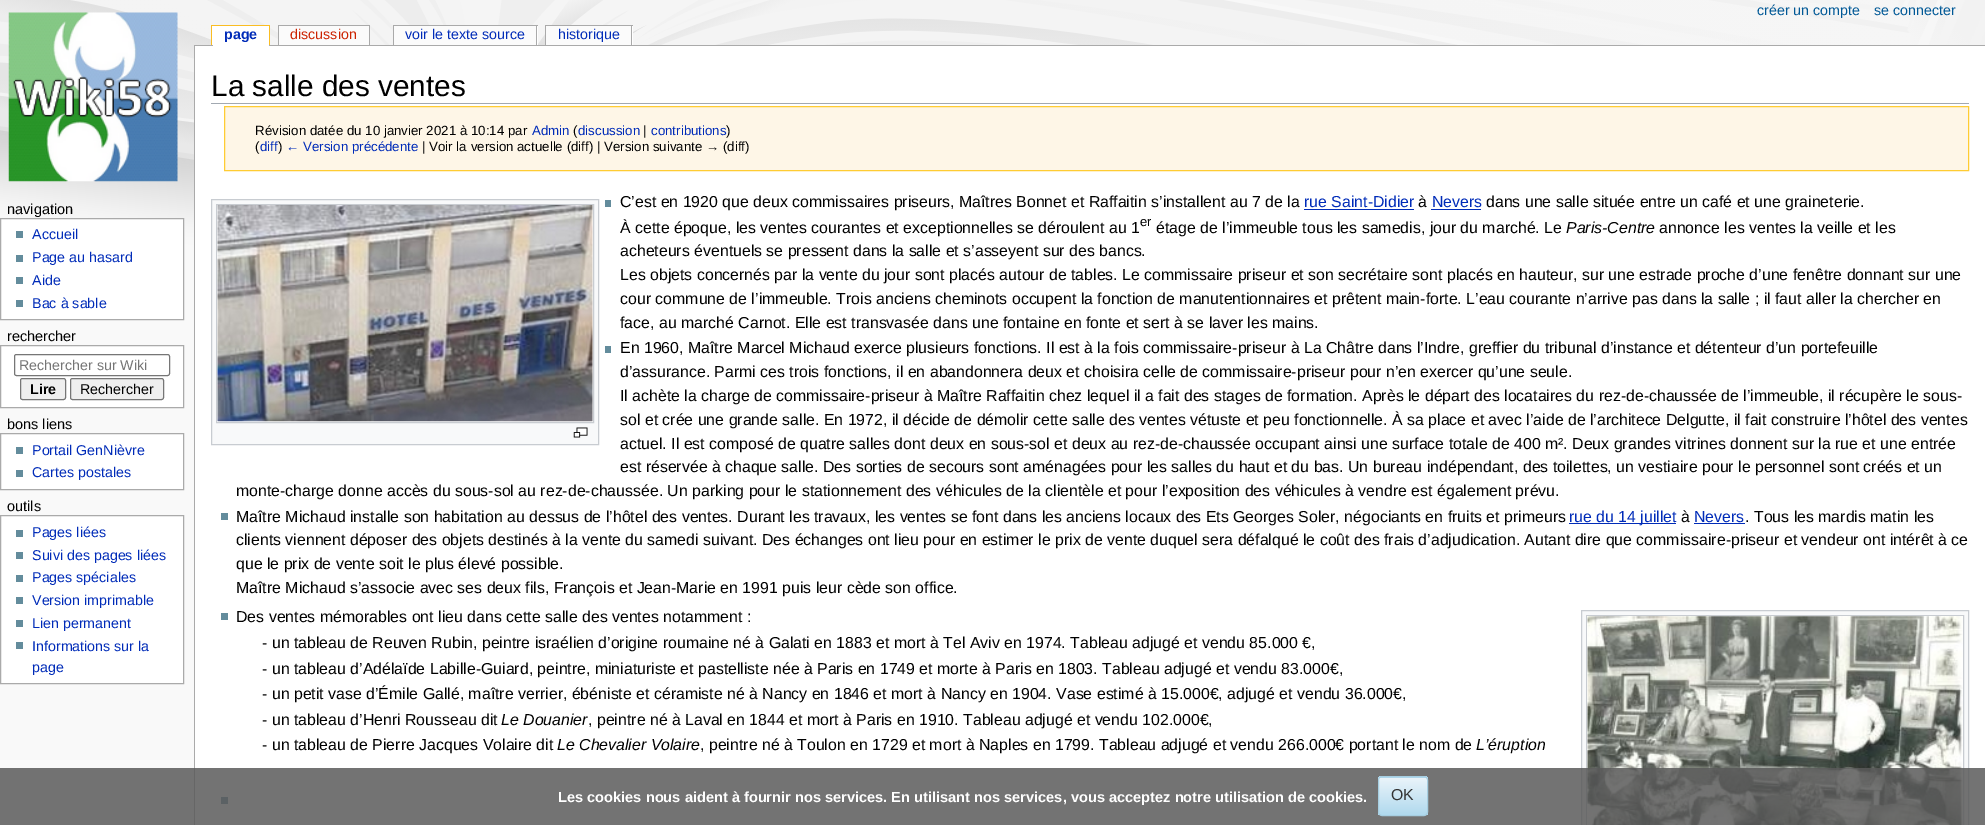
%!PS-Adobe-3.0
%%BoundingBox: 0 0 1985 825
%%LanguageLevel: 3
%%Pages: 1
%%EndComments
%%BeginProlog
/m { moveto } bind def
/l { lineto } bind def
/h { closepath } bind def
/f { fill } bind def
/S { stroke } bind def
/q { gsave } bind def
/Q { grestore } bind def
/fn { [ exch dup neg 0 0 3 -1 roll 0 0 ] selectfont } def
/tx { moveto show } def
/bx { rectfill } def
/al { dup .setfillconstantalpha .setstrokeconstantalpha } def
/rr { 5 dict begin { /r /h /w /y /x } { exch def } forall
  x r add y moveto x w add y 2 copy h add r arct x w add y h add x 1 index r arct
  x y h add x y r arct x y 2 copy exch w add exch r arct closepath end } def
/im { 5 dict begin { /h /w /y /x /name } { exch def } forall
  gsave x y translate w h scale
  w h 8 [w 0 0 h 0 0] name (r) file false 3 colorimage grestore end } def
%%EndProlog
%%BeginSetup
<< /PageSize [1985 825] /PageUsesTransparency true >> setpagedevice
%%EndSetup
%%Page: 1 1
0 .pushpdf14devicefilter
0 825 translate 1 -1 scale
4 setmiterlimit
0.976 setgray
0 0 1985 825 bx
(image0.raw) 0 0 1985 263 im
(image1.raw) 8 12 170 170 im
0.667 setgray
194 45 1791 1 bx
1 setgray
213 26 56 20 bx
/LiberationSans-Bold 14.25 fn
0 0.169 0.722 setrgbcolor
(page) 224 39 tx
1 setgray
212 26 1 19 bx
0.98 0.741 0.137 setrgbcolor
211 25 59 1 bx
269 25 1 20 bx
211 25 1 20 bx
0.984 setgray
279 26 90 19 bx
/LiberationSans-Regular 14.25 fn
0.8 0.133 0 setrgbcolor
(discussion) 290 39 tx
0.667 setgray
278 25 92 1 bx
369 25 1 20 bx
278 25 1 20 bx
0.984 setgray
394 26 142 19 bx
0 0.169 0.722 setrgbcolor
(voir le texte source) 405 39 tx
1 setgray
537 26 1 19 bx
0.667 setgray
393 25 145 1 bx
536 25 1 20 bx
393 25 1 20 bx
0.984 setgray
546 26 85 19 bx
0 0.169 0.722 setrgbcolor
(historique) 558 39 tx
1 setgray
632 26 1 19 bx
0.667 setgray
545 25 88 1 bx
631 25 1 20 bx
545 25 1 20 bx
0 0.345 0.588 setrgbcolor
(créer un compte) 1757 15 tx
(se connecter) 1874 15 tx
/LiberationSans-Regular 14.5 fn
0 setgray
(navigation) 7 214 tx
1 setgray
0.5 218.5 m 183.5 218.5 l 183.5 319.5 l 0.5 319.5 l h q f Q
0.667 setgray
S
0.388 0.549 0.612 setrgbcolor
16 231 7 7 bx
/LiberationSans-Regular 14.25 fn
0 0.169 0.722 setrgbcolor
(Accueil) 32 239 tx
0.388 0.549 0.612 setrgbcolor
16 255 7 7 bx
0 0.169 0.722 setrgbcolor
(Page au hasard) 32 262 tx
0.388 0.549 0.612 setrgbcolor
16 277 7 7 bx
0 0.169 0.722 setrgbcolor
(Aide) 32 285 tx
0.388 0.549 0.612 setrgbcolor
16 300 7 7 bx
0 0.169 0.722 setrgbcolor
(Bac à sable) 32 308 tx
/LiberationSans-Regular 14.5 fn
0 setgray
(rechercher) 7 341 tx
1 setgray
0.5 345.5 m 183.5 345.5 l 183.5 407.5 l 0.5 407.5 l h q f Q
0.667 setgray
S
0.463 setgray
14.5 354.5 155 21 2 rr S
/LiberationSans-Regular 14.25 fn
0.459 setgray
(Rechercher sur Wiki) 19 370 tx
0.937 setgray
20.5 378.5 45 21 2 rr q f Q
0.463 setgray
S
/LiberationSans-Bold 14.25 fn
0 setgray
(Lire) 30 394 tx
0.937 setgray
70.5 378.5 93 21 2 rr q f Q
0.463 setgray
S
/LiberationSans-Regular 14.25 fn
0 setgray
(Rechercher) 80 394 tx
/LiberationSans-Regular 14.5 fn
(bons liens) 7 429 tx
1 setgray
0.5 433.5 m 183.5 433.5 l 183.5 489.5 l 0.5 489.5 l h q f Q
0.667 setgray
S
0.388 0.549 0.612 setrgbcolor
16 447 7 7 bx
/LiberationSans-Regular 14.25 fn
0 0.169 0.722 setrgbcolor
(Portail GenNièvre) 32 455 tx
0.388 0.549 0.612 setrgbcolor
16 470 7 7 bx
0 0.169 0.722 setrgbcolor
(Cartes postales) 32 477 tx
/LiberationSans-Regular 14.5 fn
0 setgray
(outils) 7 511 tx
1 setgray
0.5 515.5 m 183.5 515.5 l 183.5 683.5 l 0.5 683.5 l h q f Q
0.667 setgray
S
0.388 0.549 0.612 setrgbcolor
16 530 7 7 bx
/LiberationSans-Regular 14.25 fn
0 0.169 0.722 setrgbcolor
(Pages liées) 32 537 tx
0.388 0.549 0.612 setrgbcolor
16 552 7 7 bx
0 0.169 0.722 setrgbcolor
(Suivi des pages liées) 32 560 tx
0.388 0.549 0.612 setrgbcolor
16 575 7 7 bx
0 0.169 0.722 setrgbcolor
(Pages spéciales) 32 582 tx
0.388 0.549 0.612 setrgbcolor
16 597 7 7 bx
0 0.169 0.722 setrgbcolor
(Version imprimable) 32 605 tx
0.388 0.549 0.612 setrgbcolor
16 620 7 7 bx
0 0.169 0.722 setrgbcolor
(Lien permanent) 32 628 tx
0.388 0.549 0.612 setrgbcolor
16 642 7 7 bx
0 0.169 0.722 setrgbcolor
(Informations sur la) 32 651 tx
(page) 32 672 tx
1 setgray
195 46 1790 779 bx
0.667 setgray
194 45 1 780 bx
0.635 0.663 0.694 setrgbcolor
211 103 1758 1 bx
/LiberationSans-Regular 29.75 fn
0 setgray
(La salle des ventes) 211 96 tx
0.996 0.965 0.906 setrgbcolor
224.5 106.5 m 1968.5 106.5 l 1968.5 170.5 l 224.5 170.5 l h q f Q
1 0.8 0.2 setrgbcolor
S
/LiberationSans-Regular 13.3 fn
0 setgray
(Révision datée du 10 janvier 2021 à 10:14 par) 255 135 tx
0 0.169 0.722 setrgbcolor
(Admin) 532 135 tx
0 setgray
(\() 573 135 tx
0 0.169 0.722 setrgbcolor
(discussion) 578 135 tx
0 setgray
(|) 643 135 tx
0 0.169 0.722 setrgbcolor
(contributions) 651 135 tx
0 setgray
(\)) 726 135 tx
(\() 255 151 tx
0 0.169 0.722 setrgbcolor
(diff) 260 151 tx
0 setgray
(\)) 278 151 tx
0 0.169 0.722 setrgbcolor
(← Version précédente) 286 151 tx
0 setgray
(| Voir la version actuelle \(diff\) | Version suivante → \(diff\)) 422 151 tx
0.388 0.549 0.612 setrgbcolor
605 200 6 7 bx
/LiberationSans-Regular 15.88 fn
0 setgray
(C’est en 1920 que deux commissaires priseurs, Maîtres Bonnet et Raffaitin s’installent au 7 de la) 620 207 tx
0 0.169 0.722 setrgbcolor
(rue Saint-Didier) 1304 207 tx
1304 209 110 1 bx
0 setgray
(à) 1418 207 tx
0 0.169 0.722 setrgbcolor
(Nevers) 1432 207 tx
1431 209 50 1 bx
0 setgray
(dans une salle située entre un café et une graineterie.) 1486 207 tx
(À cette époque, les ventes courantes et exceptionnelles se déroulent au 1) 620 233 tx
/LiberationSans-Regular 13 fn
(er) 1140 226 tx
/LiberationSans-Regular 15.88 fn
(étage de l’immeuble tous les samedis, jour du marché. Le) 1156 233 tx
/LiberationSans-Italic 15.88 fn
(Paris-Centre) 1566 233 tx
/LiberationSans-Regular 15.88 fn
(annonce les ventes la veille et les) 1659 233 tx
(acheteurs éventuels se pressent dans la salle et s’asseyent sur des bancs.) 620 256 tx
(Les objets concernés par la vente du jour sont placés autour de tables. Le commissaire priseur et son secrétaire sont placés en hauteur, sur une estrade proche d’une fenêtre donnant sur une) 620 280 tx
(cour commune de l’immeuble. Trois anciens cheminots occupent la fonction de manutentionnaires et prêtent main-forte. L’eau courante n’arrive pas dans la salle ; il faut aller la chercher en) 620 304 tx
(face, au marché Carnot. Elle est transvasée dans une fontaine en fonte et sert à se laver les mains.) 620 328 tx
0.388 0.549 0.612 setrgbcolor
605 346 6 7 bx
0 setgray
(En 1960, Maître Marcel Michaud exerce plusieurs fonctions. Il est à la fois commissaire-priseur à La Châtre dans l’Indre, greffier du tribunal d’instance et détenteur d’un portefeuille) 620 353 tx
(d’assurance. Parmi ces trois fonctions, il en abandonnera deux et choisira celle de commissaire-priseur pour n’en exercer qu’une seule.) 620 377 tx
(Il achète la charge de commissaire-priseur à Maître Raffaitin chez lequel il a fait des stages de formation. Après le départ des locataires du rez-de-chaussée de l’immeuble, il récupère le sous-) 620 401 tx
(sol et crée une grande salle. En 1972, il décide de démolir cette salle des ventes vétuste et peu fonctionnelle. À sa place et avec l’aide de l’architece Delgutte, il fait construire l’hôtel des ventes) 620 425 tx
(actuel. Il est composé de quatre salles dont deux en sous-sol et deux au rez-de-chaussée occupant ainsi une surface totale de 400 m². Deux grandes vitrines donnent sur la rue et une entrée) 620 449 tx
(est réservée à chaque salle. Des sorties de secours sont aménagées pour les salles du haut et du bas. Un bureau indépendant, des toilettes, un vestiaire pour le personnel sont créés et un) 620 472 tx
(monte-charge donne accès du sous-sol au rez-de-chaussée. Un parking pour le stationnement des véhicules de la clientèle et pour l’exposition des véhicules à vendre est également prévu.) 236 496 tx
0.388 0.549 0.612 setrgbcolor
221 513 7 7 bx
0 setgray
(Maître Michaud installe son habitation au dessus de l’hôtel des ventes. Durant les travaux, les ventes se font dans les anciens locaux des Ets Georges Soler, négociants en fruits et primeurs) 236 522 tx
0 0.169 0.722 setrgbcolor
1569 523 107 1 bx
(rue du 14 juillet) 1569 522 tx
0 setgray
(à) 1681 522 tx
0 0.169 0.722 setrgbcolor
(Nevers) 1694 522 tx
1694 523 51 1 bx
0 setgray
(. Tous les mardis matin les) 1745 522 tx
(clients viennent déposer des objets destinés à la vente du samedi suivant. Des échanges ont lieu pour en estimer le prix de vente duquel sera défalqué le coût des frais d’adjudication. Autant dire que commissaire-priseur et vendeur ont intérêt à ce) 236 545 tx
(que le prix de vente soit le plus élevé possible.) 236 569 tx
(Maître Michaud s’associe avec ses deux fils, François et Jean-Marie en 1991 puis leur cède son office.) 236 593 tx
0.973 0.976 0.98 setrgbcolor
211.5 199.5 m 598.5 199.5 l 598.5 444.5 l 211.5 444.5 l h q f Q
0.784 0.8 0.82 setrgbcolor
S
1 setgray
216.5 204.5 m 593.5 204.5 l 593.5 422.5 l 216.5 422.5 l h q f Q
0.784 0.8 0.82 setrgbcolor
S
(image2.raw) 217 205 376 217 im
(image3.raw) 573 427 15 11 im
0.388 0.549 0.612 setrgbcolor
221 613 7 7 bx
0 setgray
(Des ventes mémorables ont lieu dans cette salle des ventes notamment :) 236 622 tx
0.973 0.976 0.98 setrgbcolor
1581.5 610.5 m 1968.5 610.5 l 1968.5 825.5 l 1581.5 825.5 l h q f Q
0.784 0.8 0.82 setrgbcolor
S
1 setgray
1586.5 615.5 m 1963.5 615.5 l 1963.5 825.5 l 1586.5 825.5 l h q f Q
0.784 0.8 0.82 setrgbcolor
S
(image4.raw) 1587 616 376 209 im
0 setgray
(- un tableau de Reuven Rubin, peintre israélien d’origine roumaine né à Galati en 1883 et mort à Tel Aviv en 1974. Tableau adjugé et vendu 85.000 €,) 262 648 tx
(- un tableau d’Adélaïde Labille-Guiard, peintre, miniaturiste et pastelliste née à Paris en 1749 et morte à Paris en 1803. Tableau adjugé et vendu 83.000€,) 262 674 tx
(- un petit vase d’Émile Gallé, maître verrier, ébéniste et céramiste né à Nancy en 1846 et mort à Nancy en 1904. Vase estimé à 15.000€, adjugé et vendu 36.000€,) 262 699 tx
(- un tableau d’Henri Rousseau dit) 262 725 tx
/LiberationSans-Italic 15.88 fn
(Le Douanier) 501 725 tx
/LiberationSans-Regular 15.88 fn
(, peintre né à Laval en 1844 et mort à Paris en 1910. Tableau adjugé et vendu 102.000€,) 588 725 tx
(- un tableau de Pierre Jacques Volaire dit) 262 750 tx
/LiberationSans-Italic 15.88 fn
(Le Chevalier Volaire) 557 750 tx
/LiberationSans-Regular 15.88 fn
(, peintre né à Toulon en 1729 et mort à Naples en 1799. Tableau adjugé et vendu 266.000€ portant le nom de) 700 750 tx
/LiberationSans-Italic 15.88 fn
(L’éruption) 1476 750 tx
0.388 0.549 0.612 setrgbcolor
221 797 7 7 bx
0.85 al
0.353 setgray
0 768 1985 57 bx
/LiberationSans-Bold 14.6 fn
1 al
1 setgray
(Les cookies nous aident à fournir nos services. En utilisant nos services, vous acceptez notre utilisation de cookies.) 558 802 tx
q
1378 776 50 40 4 rr clip newpath
q 1378 776 m 1428 776 l 1428 778 l 1378 778 l h clip newpath
<< /ShadingType 2 /ColorSpace /DeviceRGB /Coords [1403 740 1403 778] /Extend [true true] /Function << /FunctionType 2 /Domain [0 1] /C0 [0.918 0.957 0.98] /C1 [0.69 0.851 0.933] /N 1 >> >> shfill Q
q 1378 778 m 1428 778 l 1428 815 l 1378 815 l h clip newpath
<< /ShadingType 2 /ColorSpace /DeviceRGB /Coords [1403 778 1403 815] /Extend [true true] /Function << /FunctionType 2 /Domain [0 1] /C0 [0.918 0.957 0.98] /C1 [0.69 0.851 0.933] /N 1 >> >> shfill Q
Q
0.651 0.808 0.882 setrgbcolor
1378.5 776.5 49 39 3.5 rr S
/LiberationSans-Regular 15.88 fn
0.2 setgray
(OK) 1391 800 tx
.poppdf14devicefilter showpage
%%EOF
